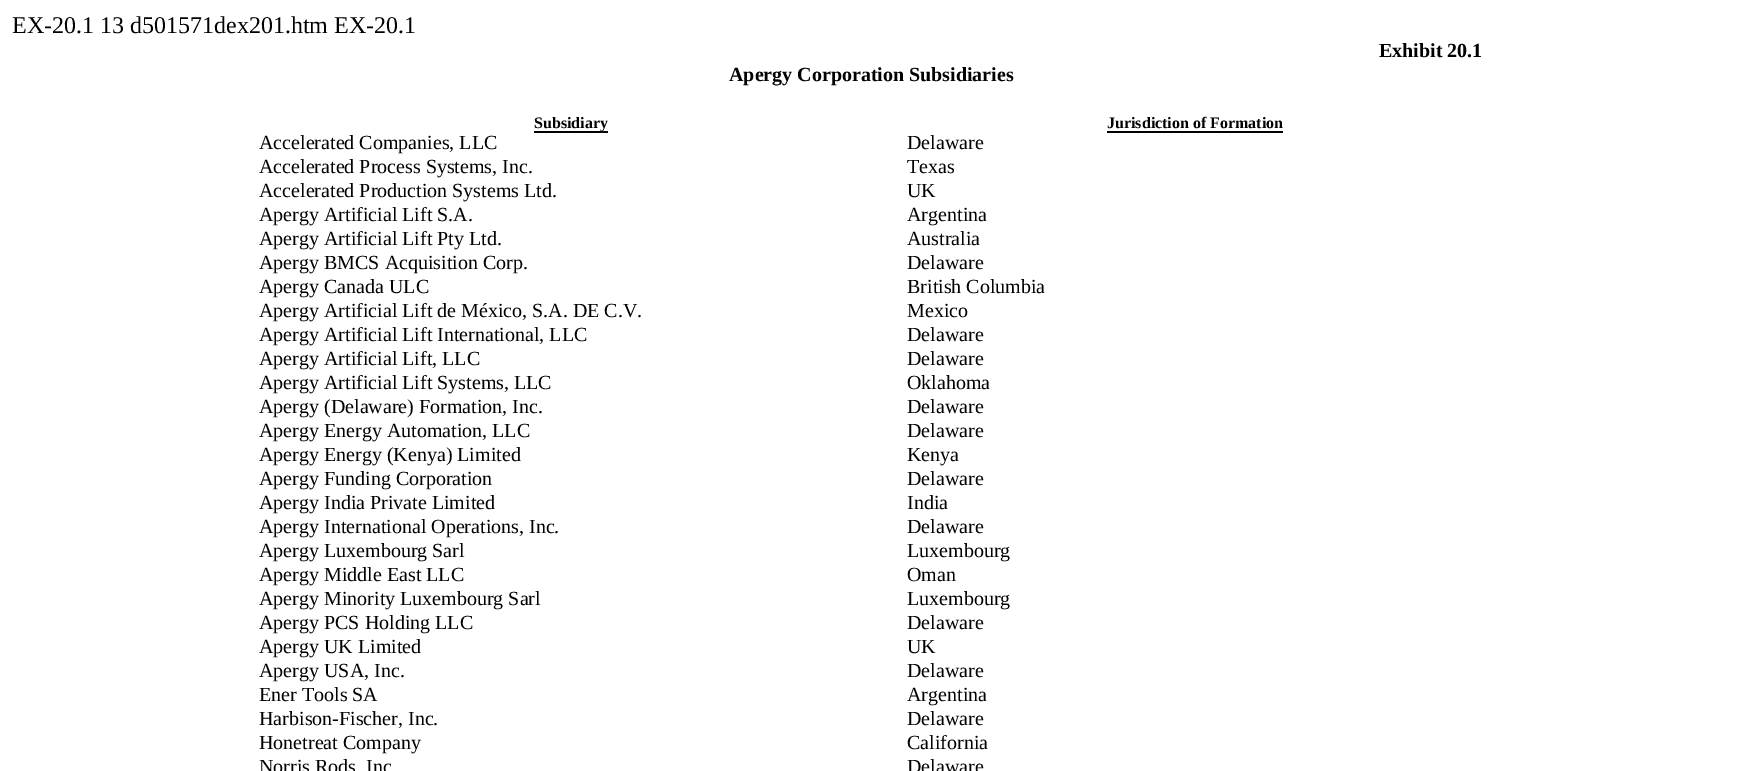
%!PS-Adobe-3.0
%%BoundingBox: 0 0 1741 771
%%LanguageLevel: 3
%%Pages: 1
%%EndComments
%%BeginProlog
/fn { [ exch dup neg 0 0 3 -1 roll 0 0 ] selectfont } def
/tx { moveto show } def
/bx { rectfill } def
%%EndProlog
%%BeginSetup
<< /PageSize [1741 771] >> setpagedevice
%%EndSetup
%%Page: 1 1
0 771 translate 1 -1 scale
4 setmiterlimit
1 setgray
0 0 1741 771 bx
/LiberationSerif-Regular 24 fn
0 setgray
(EX-20.1 13 d501571dex201.htm EX-20.1) 12 33 tx
/LiberationSerif-Bold 20 fn
(Exhibit 20.1) 1379 57 tx
(Apergy Corporation Subsidiaries) 729 81 tx
534 131 74 2 bx
/LiberationSerif-Bold 16 fn
(Subsidiary) 534 128 tx
(Jurisdiction of Formation) 1107 128 tx
1107 131 176 2 bx
/LiberationSerif-Regular 20 fn
(Accelerated Companies, LLC) 259 149 tx
(Delaware) 907 149 tx
(Accelerated Process Systems, Inc.) 259 173 tx
(Texas) 907 173 tx
(Accelerated Production Systems Ltd.) 259 197 tx
(UK) 907 197 tx
(Apergy Artificial Lift S.A.) 259 221 tx
(Argentina) 907 221 tx
(Apergy Artificial Lift Pty Ltd.) 259 245 tx
(Australia) 907 245 tx
(Apergy BMCS Acquisition Corp.) 259 269 tx
(Delaware) 907 269 tx
(Apergy Canada ULC) 259 293 tx
(British Columbia) 907 293 tx
(Apergy Artificial Lift de México, S.A. DE C.V.) 259 317 tx
(Mexico) 907 317 tx
(Apergy Artificial Lift International, LLC) 259 341 tx
(Delaware) 907 341 tx
(Apergy Artificial Lift, LLC) 259 365 tx
(Delaware) 907 365 tx
(Apergy Artificial Lift Systems, LLC) 259 389 tx
(Oklahoma) 907 389 tx
(Apergy \(Delaware\) Formation, Inc.) 259 413 tx
(Delaware) 907 413 tx
(Apergy Energy Automation, LLC) 259 437 tx
(Delaware) 907 437 tx
(Apergy Energy \(Kenya\) Limited) 259 461 tx
(Kenya) 907 461 tx
(Apergy Funding Corporation) 259 485 tx
(Delaware) 907 485 tx
(Apergy India Private Limited) 259 509 tx
(India) 907 509 tx
(Apergy International Operations, Inc.) 259 533 tx
(Delaware) 907 533 tx
(Apergy Luxembourg Sarl) 259 557 tx
(Luxembourg) 907 557 tx
(Apergy Middle East LLC) 259 581 tx
(Oman) 907 581 tx
(Apergy Minority Luxembourg Sarl) 259 605 tx
(Luxembourg) 907 605 tx
(Apergy PCS Holding LLC) 259 629 tx
(Delaware) 907 629 tx
(Apergy UK Limited) 259 653 tx
(UK) 907 653 tx
(Apergy USA, Inc.) 259 677 tx
(Delaware) 907 677 tx
(Ener Tools SA) 259 701 tx
(Argentina) 907 701 tx
(Harbison-Fischer, Inc.) 259 725 tx
(Delaware) 907 725 tx
(Honetreat Company) 259 749 tx
(California) 907 749 tx
(Norris Rods, Inc) 259 773 tx
(Delaware) 907 773 tx
showpage
%%EOF
